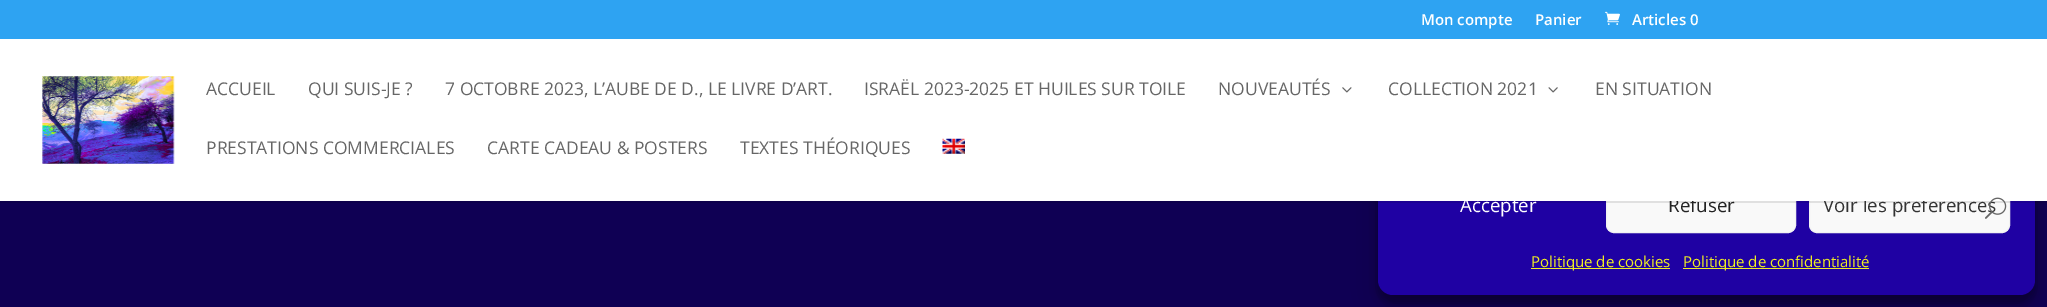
%!PS-Adobe-3.0
%%BoundingBox: 0 0 2047 307
%%LanguageLevel: 3
%%Pages: 1
%%EndComments
%%BeginProlog
/m { moveto } bind def
/l { lineto } bind def
/h { closepath } bind def
/f { fill } bind def
/S { stroke } bind def
/q { gsave } bind def
/Q { grestore } bind def
/fn { [ exch dup neg 0 0 3 -1 roll 0 0 ] selectfont } def
/tx { moveto show } def
/bx { rectfill } def
/al { dup .setfillconstantalpha .setstrokeconstantalpha } def
/rr { 5 dict begin { /r /h /w /y /x } { exch def } forall
  x r add y moveto x w add y 2 copy h add r arct x w add y h add x 1 index r arct
  x y h add x y r arct x y 2 copy exch w add exch r arct closepath end } def
/sh { 12 dict begin { /a /b /q /h /w /y /x } { exch def } forall gsave /was 0 def
  9 -2 -9 { dup b mul 4 div /e exch def 1 sub .425 mul 2.718 exch exp 1 add a .99 .min exch div /now exch def
    1 1 now sub 1 was sub div sub al /was now def
    w h .min e 2 mul add 0 gt { x e sub y e sub w e 2 mul add h e 2 mul add
      q e add b .6 mul add w h .min 2 div e add .min 0 .max rr fill } if } for grestore end } def
/im { 5 dict begin { /h /w /y /x /name } { exch def } forall
  gsave x y translate w h scale
  w h 8 [w 0 0 h 0 0] name (r) file false 3 colorimage grestore end } def
%%EndProlog
%%BeginSetup
<< /PageSize [2047 307] /PageUsesTransparency true >> setpagedevice
%%EndSetup
%%Page: 1 1
0 .pushpdf14devicefilter
0 307 translate 1 -1 scale
4 setmiterlimit
0.059 0 0.329 setrgbcolor
0 0 2047 307 bx
0 setgray
1378 20 657 283 15 4 0.23 sh
1378 25 657 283 15 12.5 0.19 sh
0.122 0.004 0.639 setrgbcolor
1378 13 657 282 15 rr f
0.18 0.639 0.949 setrgbcolor
0 0 2047 39 bx
/OpenSans-SemiBold 15 fn
1 setgray
(Mon compte) 1421 25 tx
(Panier) 1535 25 tx
(image0.raw) 1605 11 15 14 im
(Articles 0) 1632 25 tx
0.976 setgray
1606.5 176.5 189 56 7.5 rr q f Q
0.949 setgray
S
0.976 setgray
1809.5 176.5 200 56 7.5 rr q f Q
0.949 setgray
S
0.1 al
0 setgray
0 201 m 0 203 l 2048 203 l 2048 40 l 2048 201 l h f
/OpenSans-Regular 18.75 fn
1 al
0.133 setgray
(Refuser) 1668 212 tx
0.2 setgray
(Voir les préférences) 1823 212 tx
1 setgray
0 39 2047 162 bx
(image1.raw) 42 76 133 88 im
/OpenSans-Regular 17.5 fn
0.4 setgray
(ACCUEIL) 206 95 tx
(QUI SUIS-JE ?) 308 95 tx
(7 OCTOBRE 2023, L’AUBE DE D., LE LIVRE D’ART.) 445 95 tx
(ISRAËL 2023-2025 ET HUILES SUR TOILE) 864 95 tx
(NOUVEAUTÉS) 1218 95 tx
(image2.raw) 1342 87 10 6 im
(COLLECTION 2021) 1388 95 tx
(image3.raw) 1548 87 10 6 im
(EN SITUATION) 1595 95 tx
(PRESTATIONS COMMERCIALES) 206 154 tx
(CARTE CADEAU & POSTERS) 487 154 tx
(TEXTES THÉORIQUES) 740 154 tx
(image4.raw) 942 138 23 16 im
(image5.raw) 1985 197 22 22 im
/OpenSans-Regular 18.75 fn
1 setgray
(Accepter) 1460 212 tx
0.933 0.933 0.133 setrgbcolor
1531 268 139 1 bx
/OpenSans-Regular 15 fn
(Politique de cookies) 1531 267 tx
1683 268 186 1 bx
(Politique de confidentialité) 1683 267 tx
.poppdf14devicefilter showpage
%%EOF
